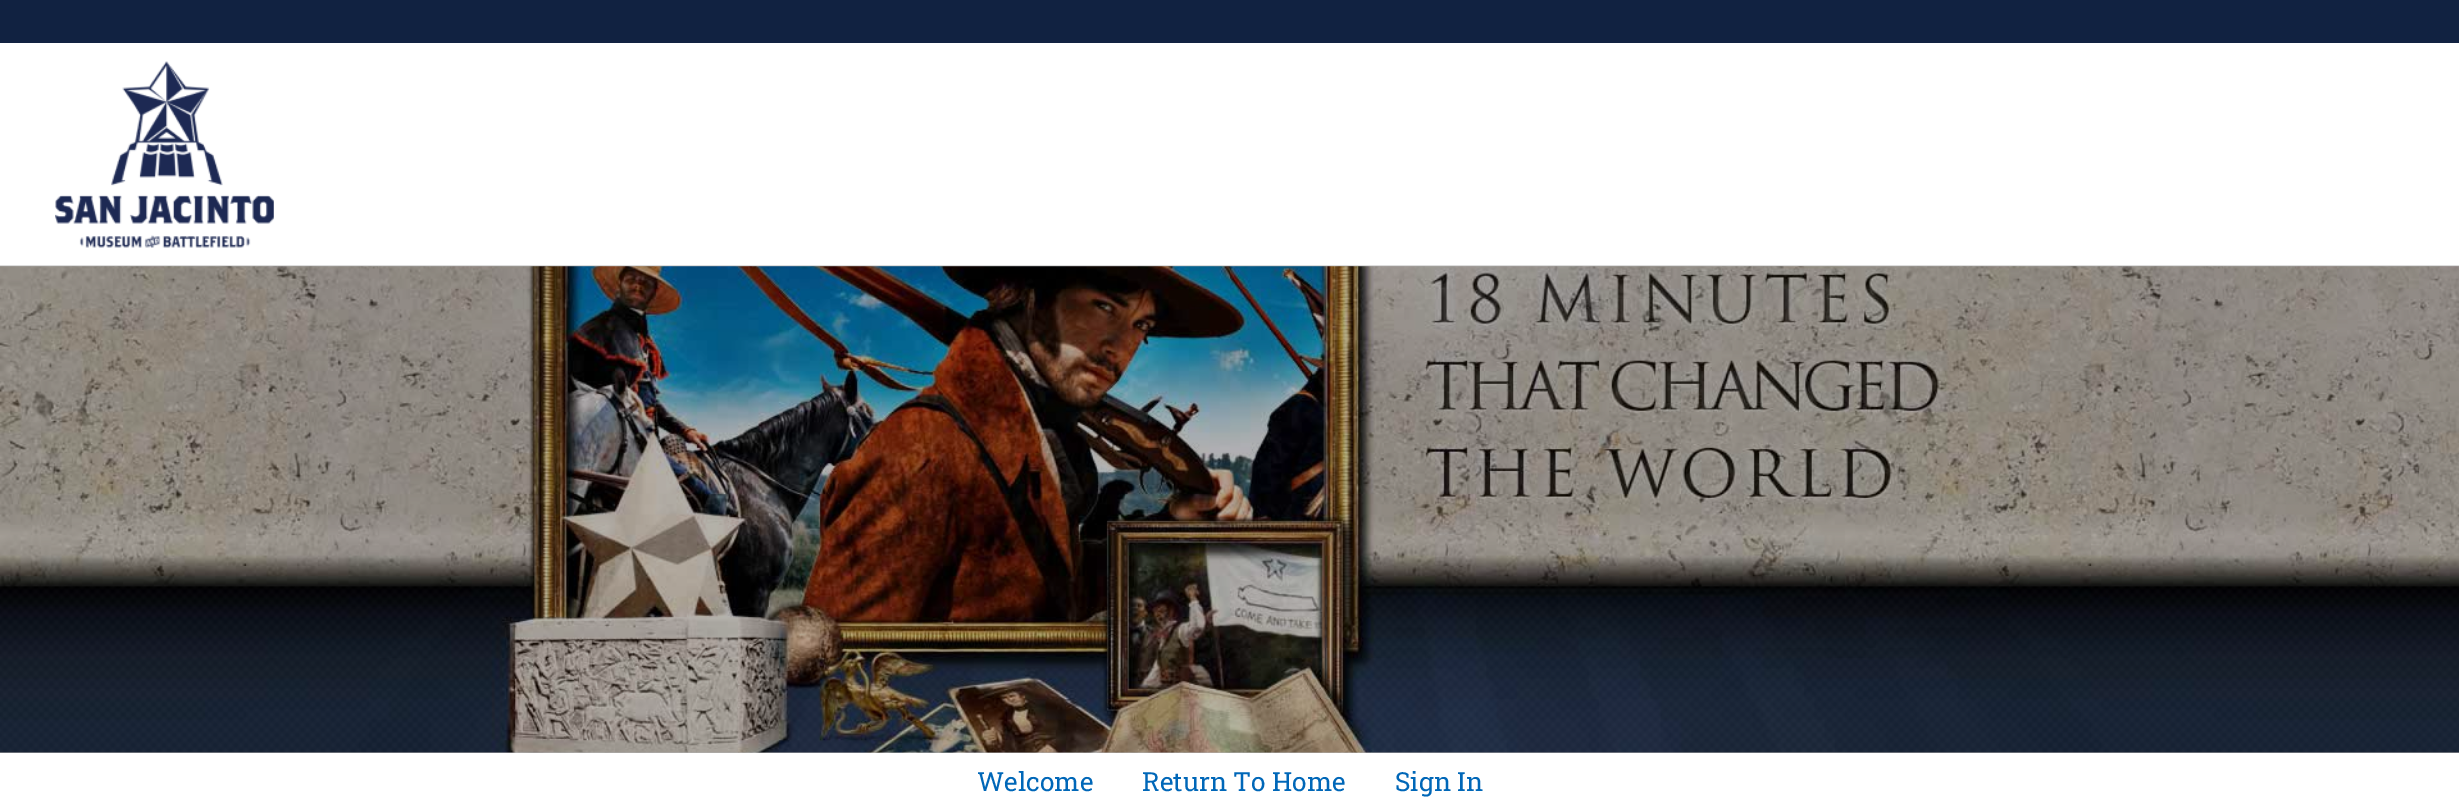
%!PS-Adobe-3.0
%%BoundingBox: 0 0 2459 809
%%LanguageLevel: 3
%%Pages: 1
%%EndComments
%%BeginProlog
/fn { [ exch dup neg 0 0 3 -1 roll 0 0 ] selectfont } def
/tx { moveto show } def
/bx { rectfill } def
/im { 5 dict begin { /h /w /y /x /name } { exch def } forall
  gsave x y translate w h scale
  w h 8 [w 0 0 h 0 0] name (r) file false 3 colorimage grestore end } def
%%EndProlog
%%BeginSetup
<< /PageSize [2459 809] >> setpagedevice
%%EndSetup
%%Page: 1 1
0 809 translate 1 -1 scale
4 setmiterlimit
1 setgray
0 0 2459 809 bx
0.702 setgray
0 266 2459 487 bx
0.867 setgray
0 265 2459 1 bx
0.067 0.133 0.255 setrgbcolor
0 0 2459 43 bx
(image0.raw) 55 61 219 187 im
(image1.raw) 0 266 2459 487 im
/RobotoSlab-Regular 26.25 fn
0 0.404 0.722 setrgbcolor
(Welcome) 977 791 tx
(Return To Home) 1142 791 tx
(Sign In) 1395 791 tx
showpage
%%EOF
